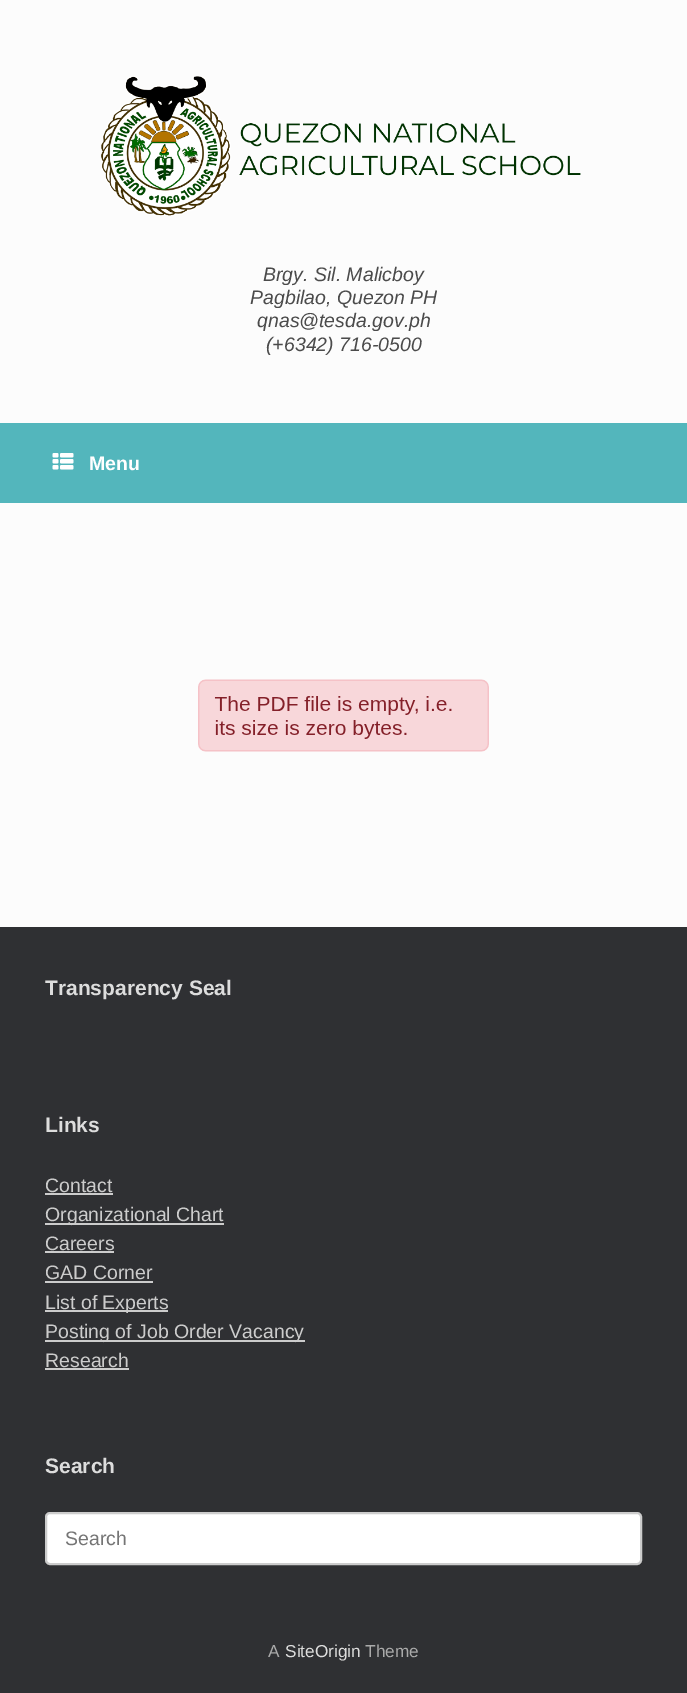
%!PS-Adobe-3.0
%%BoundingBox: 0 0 687 1693
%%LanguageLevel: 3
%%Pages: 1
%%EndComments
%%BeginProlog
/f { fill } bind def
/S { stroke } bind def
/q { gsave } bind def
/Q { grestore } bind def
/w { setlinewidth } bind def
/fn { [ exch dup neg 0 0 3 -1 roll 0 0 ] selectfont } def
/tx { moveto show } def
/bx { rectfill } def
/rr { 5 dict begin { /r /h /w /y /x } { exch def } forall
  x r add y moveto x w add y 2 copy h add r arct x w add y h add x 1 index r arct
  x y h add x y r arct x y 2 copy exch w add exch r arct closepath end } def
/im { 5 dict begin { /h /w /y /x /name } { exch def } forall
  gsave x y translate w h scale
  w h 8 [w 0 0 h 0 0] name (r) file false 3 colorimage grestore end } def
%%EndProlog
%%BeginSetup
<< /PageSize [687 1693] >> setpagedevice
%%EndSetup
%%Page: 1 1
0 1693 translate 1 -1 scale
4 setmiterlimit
0.184 0.188 0.2 setrgbcolor
0 0 687 1693 bx
0.988 setgray
0 0 687 423 bx
(image0.raw) 101 76 480 140 im
/LiberationSans-Italic 19.5 fn
0.294 setgray
(Brgy. Sil. Malicboy) 263 281 tx
(Pagbilao, Quezon PH) 250 304 tx
(qnas@tesda.gov.ph) 257 327 tx
(\(+6342\) 716-0500) 266 351 tx
0.325 0.714 0.737 setrgbcolor
0 423 687 80 bx
(image1.raw) 52 453 22 17 im
/LiberationSans-Bold 19.5 fn
1 setgray
(Menu) 89 470 tx
0.988 setgray
0 503 687 424 bx
(image2.raw) 198 679 291 73 im
/LiberationSans-Bold 21 fn
0.867 setgray
(Transparency Seal) 45 995 tx
(Links) 45 1132 tx
/LiberationSans-Regular 19.5 fn
0.8 setgray
(Contact) 45 1192 tx
45 1193 68 2 bx
45 1223 179 2 bx
(Organizational Chart) 45 1221 tx
(Careers) 45 1250 tx
45 1251 69 2 bx
(GAD Corner) 45 1279 tx
45 1281 108 2 bx
45 1310 123 2 bx
(List of Experts) 45 1309 tx
45 1340 260 2 bx
(Posting of Job Order Vacancy) 45 1338 tx
(Research) 45 1367 tx
45 1368 84 2 bx
/LiberationSans-Bold 21 fn
0.867 setgray
(Search) 45 1473 tx
1 setgray
46 1513 595 51 4 rr q f Q
0.8 setgray
2 w
S
/LiberationSans-Regular 19.5 fn
0.459 setgray
(Search) 65 1545 tx
/LiberationSans-Regular 17.25 fn
0.667 setgray
(A) 268 1657 tx
0.867 setgray
(SiteOrigin) 285 1657 tx
0.667 setgray
(Theme) 365 1657 tx
showpage
%%EOF
